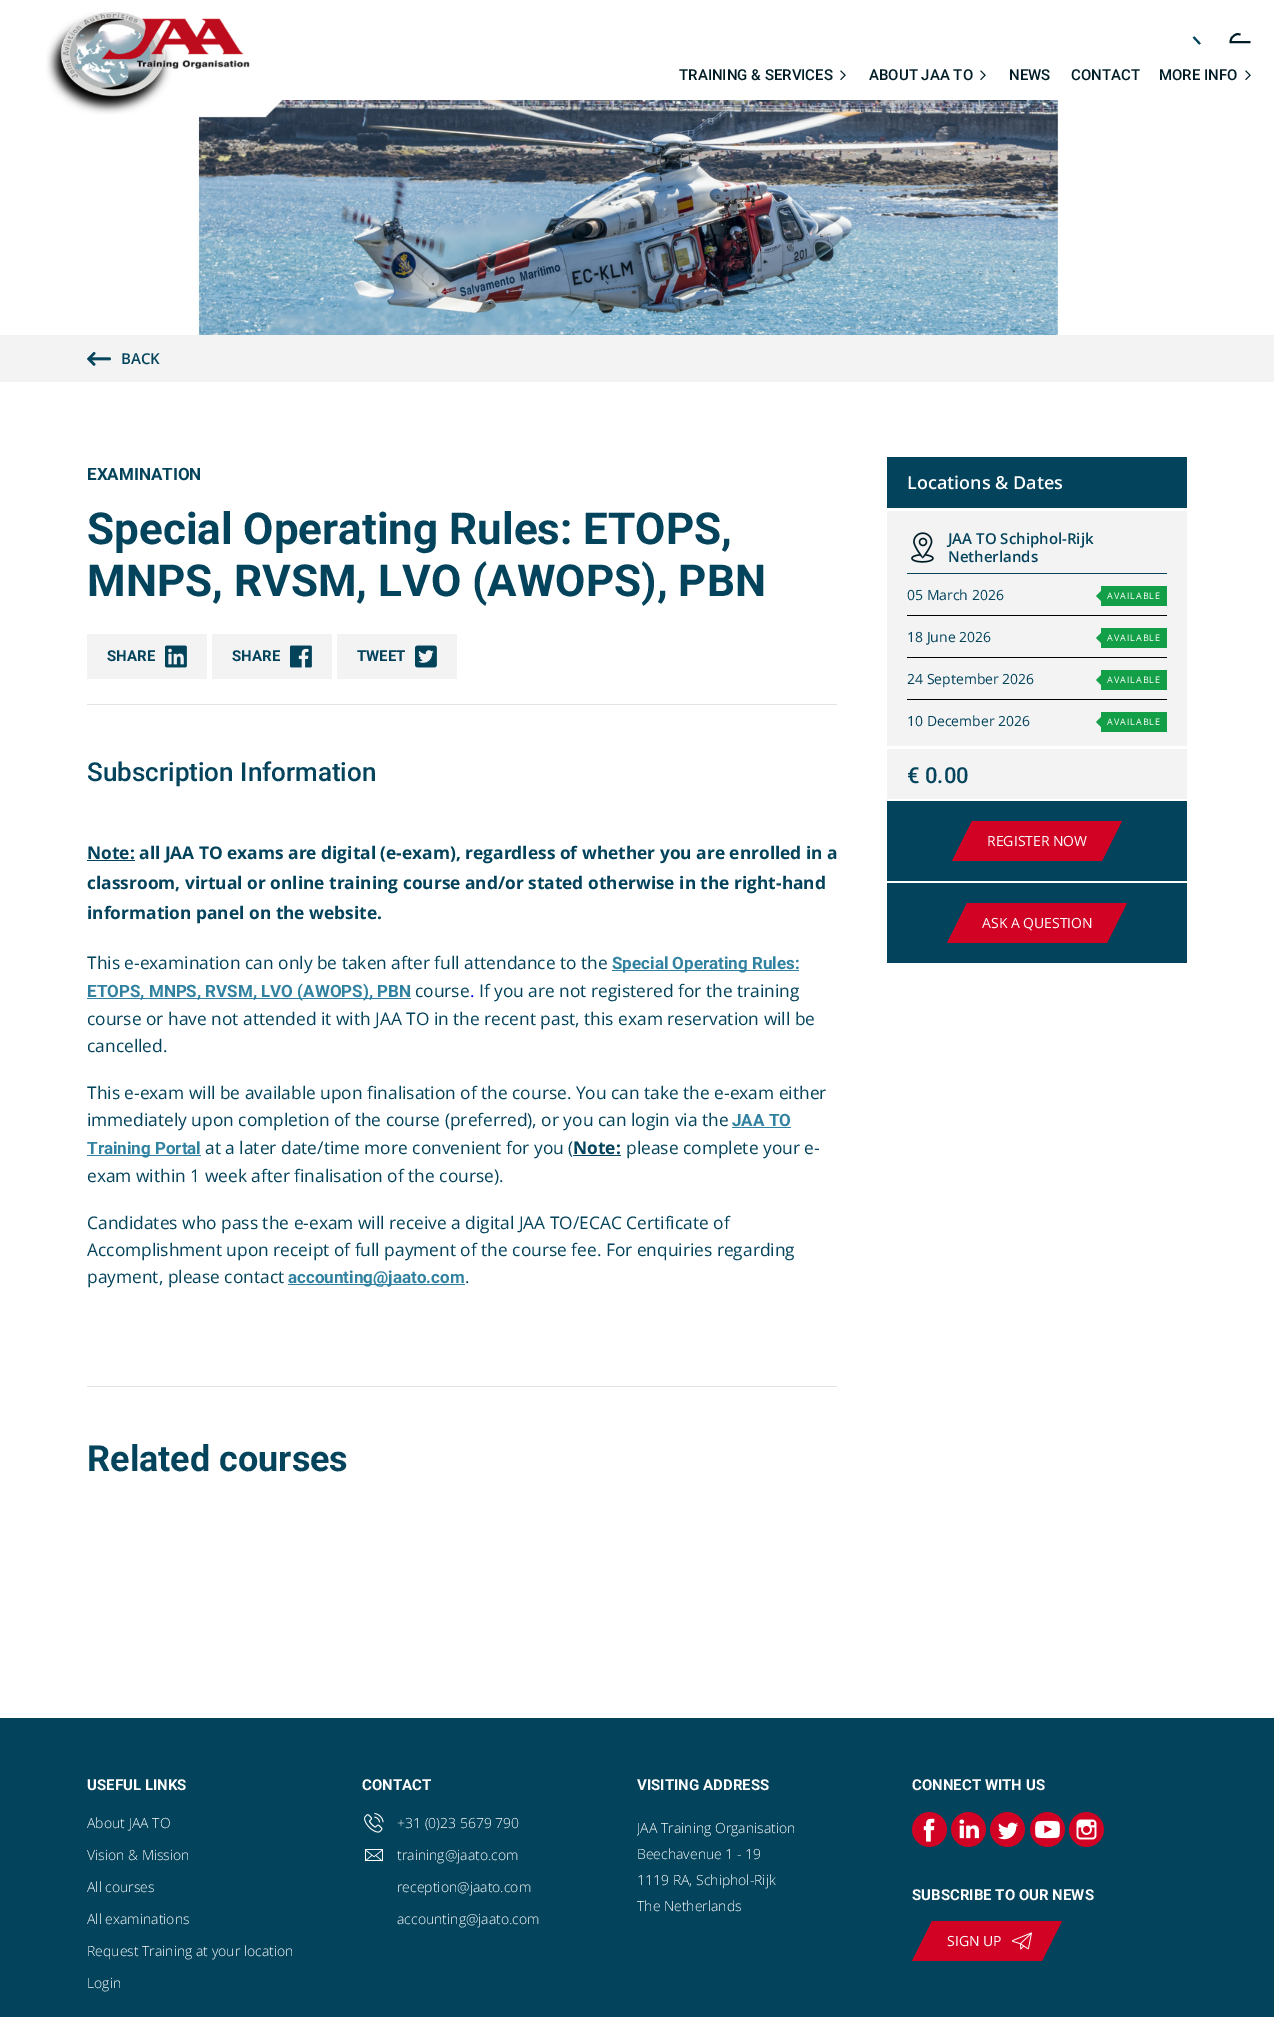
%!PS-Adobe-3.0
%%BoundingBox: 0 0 1274 2017
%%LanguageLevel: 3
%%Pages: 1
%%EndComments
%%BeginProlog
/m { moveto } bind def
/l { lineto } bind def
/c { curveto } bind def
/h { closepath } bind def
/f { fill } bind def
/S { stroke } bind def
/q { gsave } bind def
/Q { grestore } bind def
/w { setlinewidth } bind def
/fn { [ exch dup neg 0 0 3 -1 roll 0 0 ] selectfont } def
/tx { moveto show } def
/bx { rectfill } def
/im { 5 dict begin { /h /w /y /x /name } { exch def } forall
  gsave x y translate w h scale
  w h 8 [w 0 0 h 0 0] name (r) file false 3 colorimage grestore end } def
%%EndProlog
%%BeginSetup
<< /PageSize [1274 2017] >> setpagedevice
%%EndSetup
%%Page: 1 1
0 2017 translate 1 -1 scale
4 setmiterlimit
1 setgray
0 0 1274 2017 bx
(image2.raw) 0 100 1274 235 im
(image0.raw) 46 12 237 106 im
0.012 0.263 0.357 setrgbcolor
2 w
1193.5 37 m 1200 44 l S
0 0.114 0.153 setrgbcolor
1.9 w
1240.5 34.5 m 1237 34 l 1235 35 l 1232 36.5 1230.5 39 1230.5 42 c 1250.5 42 l S
/Roboto-Medium 15 fn
(TRAINING & SERVICES) 679 80 tx
(image1.raw) 840 70 6 10 im
(ABOUT JAA TO) 869 80 tx
(image1.raw) 980 70 6 10 im
(NEWS) 1009 80 tx
(CONTACT) 1071 80 tx
(MORE INFO) 1159 80 tx
(image1.raw) 1245 70 6 10 im
0.953 0.953 0.957 setrgbcolor
0 335 1274 47 bx
(image3.raw) 87 351 24 15 im
/OpenSans-SemiBold 15 fn
0.012 0.263 0.357 setrgbcolor
(BACK) 121 364 tx
/Roboto-Bold 17 fn
(EXAMINATION) 87 480 tx
/Roboto-Bold 44 fn
(Special Operating Rules: ETOPS,) 87 544 tx
(MNPS, RVSM, LVO \(AWOPS\), PBN) 87 596 tx
0.89 0.89 0.906 setrgbcolor
87 704 750 1 bx
0.953 0.953 0.957 setrgbcolor
87 634 120 45 bx
/Roboto-Bold 15 fn
0.012 0.263 0.357 setrgbcolor
(SHARE) 107 661 tx
(image4.raw) 165 645 22 23 im
0.953 0.953 0.957 setrgbcolor
212 634 120 45 bx
0.012 0.263 0.357 setrgbcolor
(SHARE) 232 661 tx
(image5.raw) 290 645 22 23 im
0.953 0.953 0.957 setrgbcolor
337 634 120 45 bx
0.012 0.263 0.357 setrgbcolor
(TWEET) 357 661 tx
(image6.raw) 415 645 22 23 im
/Roboto-Medium 26 fn
(Subscription Information) 87 781 tx
87 860 48 1 bx
/OpenSans-Bold 17.35 fn
(Note: all JAA TO exams are digital \(e-exam\), regardless of whether you are enrolled in a) 87 859 tx
(classroom, virtual or online training course and/or stated otherwise in the right-hand) 87 889 tx
(information panel on the website.) 87 919 tx
/OpenSans-Regular 17.35 fn
(This e-examination can only be taken after full attendance to the) 87 969 tx
0.192 0.506 0.627 setrgbcolor
612 970 187 1 bx
/Roboto-Bold 17 fn
(Special Operating Rules:) 612 969 tx
87 998 324 1 bx
(ETOPS, MNPS, RVSM, LVO \(AWOPS\), PBN) 87 997 tx
/OpenSans-Regular 17.35 fn
0.012 0.263 0.357 setrgbcolor
(course) 415 997 tx
0 0 0.933 setrgbcolor
(.) 470 997 tx
0.012 0.263 0.357 setrgbcolor
(If you are not registered for the training) 479 997 tx
(course or have not attended it with JAA TO in the recent past, this exam reservation will be) 87 1025 tx
(cancelled.) 87 1052 tx
(This e-exam will be available upon finalisation of the course. You can take the e-exam either) 87 1099 tx
(immediately upon completion of the course \(preferred\), or you can login via the) 87 1126 tx
/Roboto-Bold 17 fn
0.192 0.506 0.627 setrgbcolor
(JAA TO) 732 1126 tx
732 1127 59 1 bx
87 1155 114 1 bx
(Training Portal) 87 1154 tx
/OpenSans-Regular 17.35 fn
0.012 0.263 0.357 setrgbcolor
(at a later date/time more convenient for you \() 205 1154 tx
573 1155 48 1 bx
/OpenSans-Bold 17.35 fn
(Note:) 573 1154 tx
/OpenSans-Regular 17.35 fn
(please complete your e-) 626 1154 tx
(exam within 1 week after finalisation of the course\).) 87 1182 tx
(Candidates who pass the e-exam will receive a digital JAA TO/ECAC Certificate of) 87 1229 tx
(Accomplishment upon receipt of full payment of the course fee. For enquiries regarding) 87 1256 tx
(payment, please contact) 87 1283 tx
0.192 0.506 0.627 setrgbcolor
288 1284 177 1 bx
/Roboto-Bold 17 fn
(accounting@jaato.com) 288 1283 tx
/OpenSans-Regular 17.35 fn
0.012 0.263 0.357 setrgbcolor
(.) 465 1283 tx
0.89 0.89 0.906 setrgbcolor
87 1386 750 1 bx
/Roboto-Bold 36 fn
0.012 0.263 0.357 setrgbcolor
(Related courses) 87 1471 tx
0.953 0.953 0.957 setrgbcolor
887 511 300 288 bx
0.012 0.263 0.357 setrgbcolor
887 457 300 51 bx
/OpenSans-SemiBold 18 fn
1 setgray
(Locations & Dates) 907 489 tx
0.012 0.263 0.357 setrgbcolor
907 573 260 1 bx
(image7.raw) 911 532 23 31 im
/OpenSans-SemiBold 15 fn
(JAA TO Schiphol-Rijk) 948 544 tx
(Netherlands) 948 562 tx
0 setgray
907 615 260 1 bx
/OpenSans-Regular 14 fn
0.012 0.263 0.357 setrgbcolor
(05 March 2026) 907 600 tx
0.075 0.624 0.278 setrgbcolor
1101 586 66 20 bx
1101 591 m 1101 601 l 1096 596 l h f
/OpenSans-Regular 9 fn
1 setgray
1107 599 m 1 0 (AVAILABLE) ashow
0 setgray
907 657 260 1 bx
/OpenSans-Regular 14 fn
0.012 0.263 0.357 setrgbcolor
(18 June 2026) 907 642 tx
0.075 0.624 0.278 setrgbcolor
1101 628 66 20 bx
1101 633 m 1101 643 l 1096 638 l h f
/OpenSans-Regular 9 fn
1 setgray
1107 641 m 1 0 (AVAILABLE) ashow
0 setgray
907 699 260 1 bx
/OpenSans-Regular 14 fn
0.012 0.263 0.357 setrgbcolor
(24 September 2026) 907 684 tx
0.075 0.624 0.278 setrgbcolor
1101 670 66 20 bx
1101 675 m 1101 685 l 1096 680 l h f
/OpenSans-Regular 9 fn
1 setgray
1107 683 m 1 0 (AVAILABLE) ashow
/OpenSans-Regular 14 fn
0.012 0.263 0.357 setrgbcolor
(10 December 2026) 907 726 tx
0.075 0.624 0.278 setrgbcolor
1101 712 66 20 bx
1101 717 m 1101 727 l 1096 722 l h f
/OpenSans-Regular 9 fn
1 setgray
1107 725 m 1 0 (AVAILABLE) ashow
887 746 300 3 bx
/Roboto-Medium 22 fn
0.012 0.263 0.357 setrgbcolor
(€ 0.00) 907 783 tx
887 801 300 80 bx
0.824 0.008 0.141 setrgbcolor
972 821 130 40 bx
/OpenSans-Regular 14 fn
1 setgray
(REGISTER NOW) 987 846 tx
0.824 0.008 0.141 setrgbcolor
992 861 m 952 861 l 972 821 l h f
1102 821 m 1122 821 l 1102 861 l h f
0.012 0.263 0.357 setrgbcolor
887 883 300 80 bx
0.824 0.008 0.141 setrgbcolor
967 903 140 40 bx
1 setgray
(ASK A QUESTION) 982 928 tx
0.824 0.008 0.141 setrgbcolor
987 943 m 947 943 l 967 903 l h f
1107 903 m 1127 903 l 1107 943 l h f
0.012 0.263 0.357 setrgbcolor
0 1718 1274 299 bx
/Roboto-Bold 15 fn
1 setgray
(USEFUL LINKS) 87 1790 tx
/OpenSans-Light 14 fn
(About JAA TO) 87 1828 tx
(Vision & Mission) 87 1860 tx
(All courses) 87 1892 tx
(All examinations) 87 1924 tx
(Request Training at your location) 87 1956 tx
(Login) 87 1988 tx
/Roboto-Bold 15 fn
(CONTACT) 362 1790 tx
(image8.raw) 364 1813 20 20 im
/OpenSans-Light 14 fn
(+31 \(0\)23 5679 790) 397 1828 tx
(image9.raw) 364 1849 19 13 im
(training@jaato.com) 397 1860 tx
(reception@jaato.com) 397 1892 tx
(accounting@jaato.com) 397 1924 tx
/Roboto-Bold 15 fn
(VISITING ADDRESS) 637 1790 tx
q
637 1812 275 107 rectclip
/OpenSans-Light 14 fn
(JAA Training Organisation) 637 1833 tx
Q
/OpenSans-Light 14 fn
(Beechavenue 1 - 19) 637 1859 tx
(1119 RA, Schiphol-Rijk) 637 1885 tx
(The Netherlands) 637 1911 tx
/Roboto-Bold 15 fn
(CONNECT WITH US) 912 1790 tx
(image10.raw) 912 1812 35 35 im
(image11.raw) 951 1812 35 35 im
(image12.raw) 990 1812 35 35 im
(image13.raw) 1030 1812 35 35 im
(image14.raw) 1069 1812 35 35 im
(SUBSCRIBE TO OUR NEWS) 912 1900 tx
0.824 0.008 0.141 setrgbcolor
932 1921 110 40 bx
/OpenSans-Regular 14 fn
1 setgray
(SIGN UP) 947 1946 tx
0.824 0.008 0.141 setrgbcolor
952 1961 m 912 1961 l 932 1921 l h f
(image15.raw) 1012 1932 20 18 im
1042 1921 m 1062 1921 l 1042 1961 l h f
showpage
%%EOF
